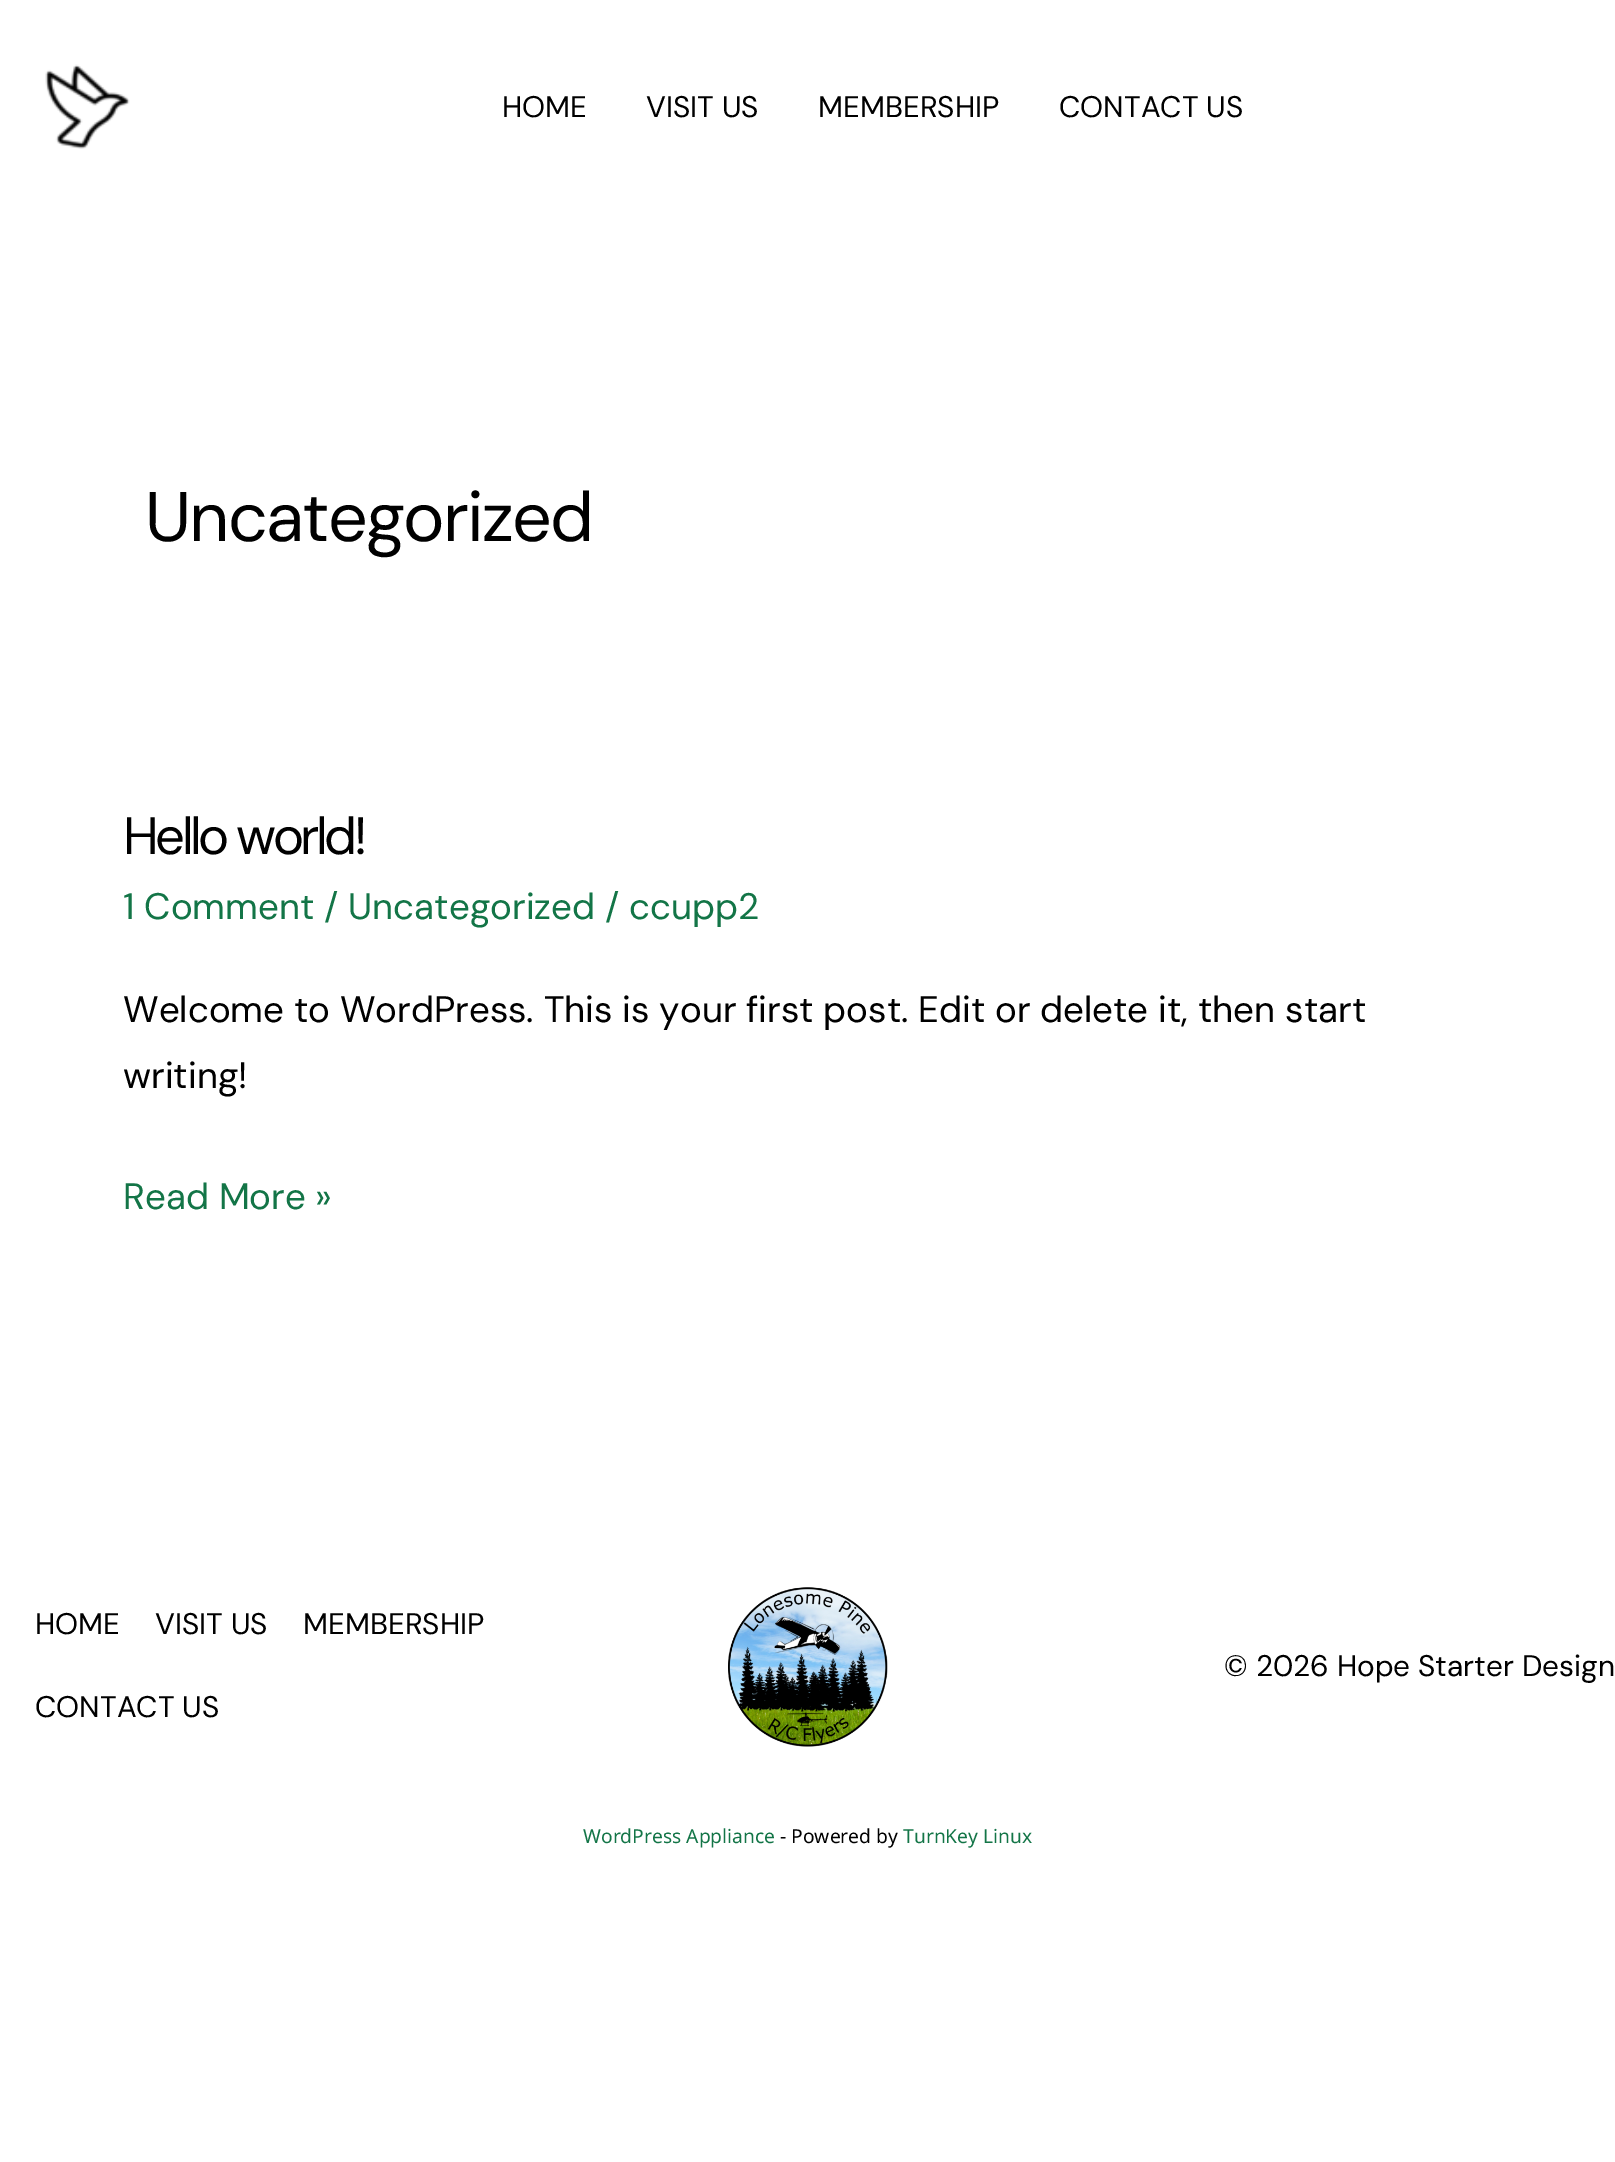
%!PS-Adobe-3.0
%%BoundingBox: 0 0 1615 2162
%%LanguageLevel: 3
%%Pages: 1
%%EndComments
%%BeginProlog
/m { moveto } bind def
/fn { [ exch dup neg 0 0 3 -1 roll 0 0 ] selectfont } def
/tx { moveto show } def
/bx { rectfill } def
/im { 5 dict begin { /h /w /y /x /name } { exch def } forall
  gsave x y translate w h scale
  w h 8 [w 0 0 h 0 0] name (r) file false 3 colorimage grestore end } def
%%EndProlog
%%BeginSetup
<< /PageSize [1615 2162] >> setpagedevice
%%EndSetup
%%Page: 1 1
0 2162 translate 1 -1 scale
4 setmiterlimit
1 setgray
0 0 1615 2162 bx
(image0.raw) 45 64 85 85 im
/DMSans-Regular 29.75 fn
0 setgray
(HOME) 502 117 tx
(VISIT US) 646 117 tx
(MEMBERSHIP) 818 117 tx
(CONTACT US) 1059 117 tx
/DMSans-Regular 70 fn
145 541 m -1.75 0 (Uncategorized) ashow
/DMSans-Regular 52.5 fn
123 854 m -3.5 0 (Hello world!) ashow
/DMSans-Regular 36.75 fn
0.075 0.459 0.278 setrgbcolor
(1 Comment / Uncategorized / ccupp2) 123 919 tx
0 setgray
(Welcome to WordPress. This is your first post. Edit or delete it, then start) 123 1022 tx
(writing!) 123 1088 tx
0.075 0.459 0.278 setrgbcolor
(Read More ») 123 1209 tx
/DMSans-Regular 29.75 fn
0 setgray
(HOME) 35 1634 tx
(VISIT US) 155 1634 tx
(MEMBERSHIP) 303 1634 tx
(CONTACT US) 35 1717 tx
(image1.raw) 728 1587 160 160 im
(© 2026 Hope Starter Design) 1224 1676 tx
/NotoSans-Regular 19.25 fn
0.075 0.459 0.278 setrgbcolor
(WordPress Appliance) 583 1843 tx
0 setgray
(- Powered by) 780 1843 tx
0.075 0.459 0.278 setrgbcolor
(TurnKey Linux) 903 1843 tx
showpage
%%EOF
